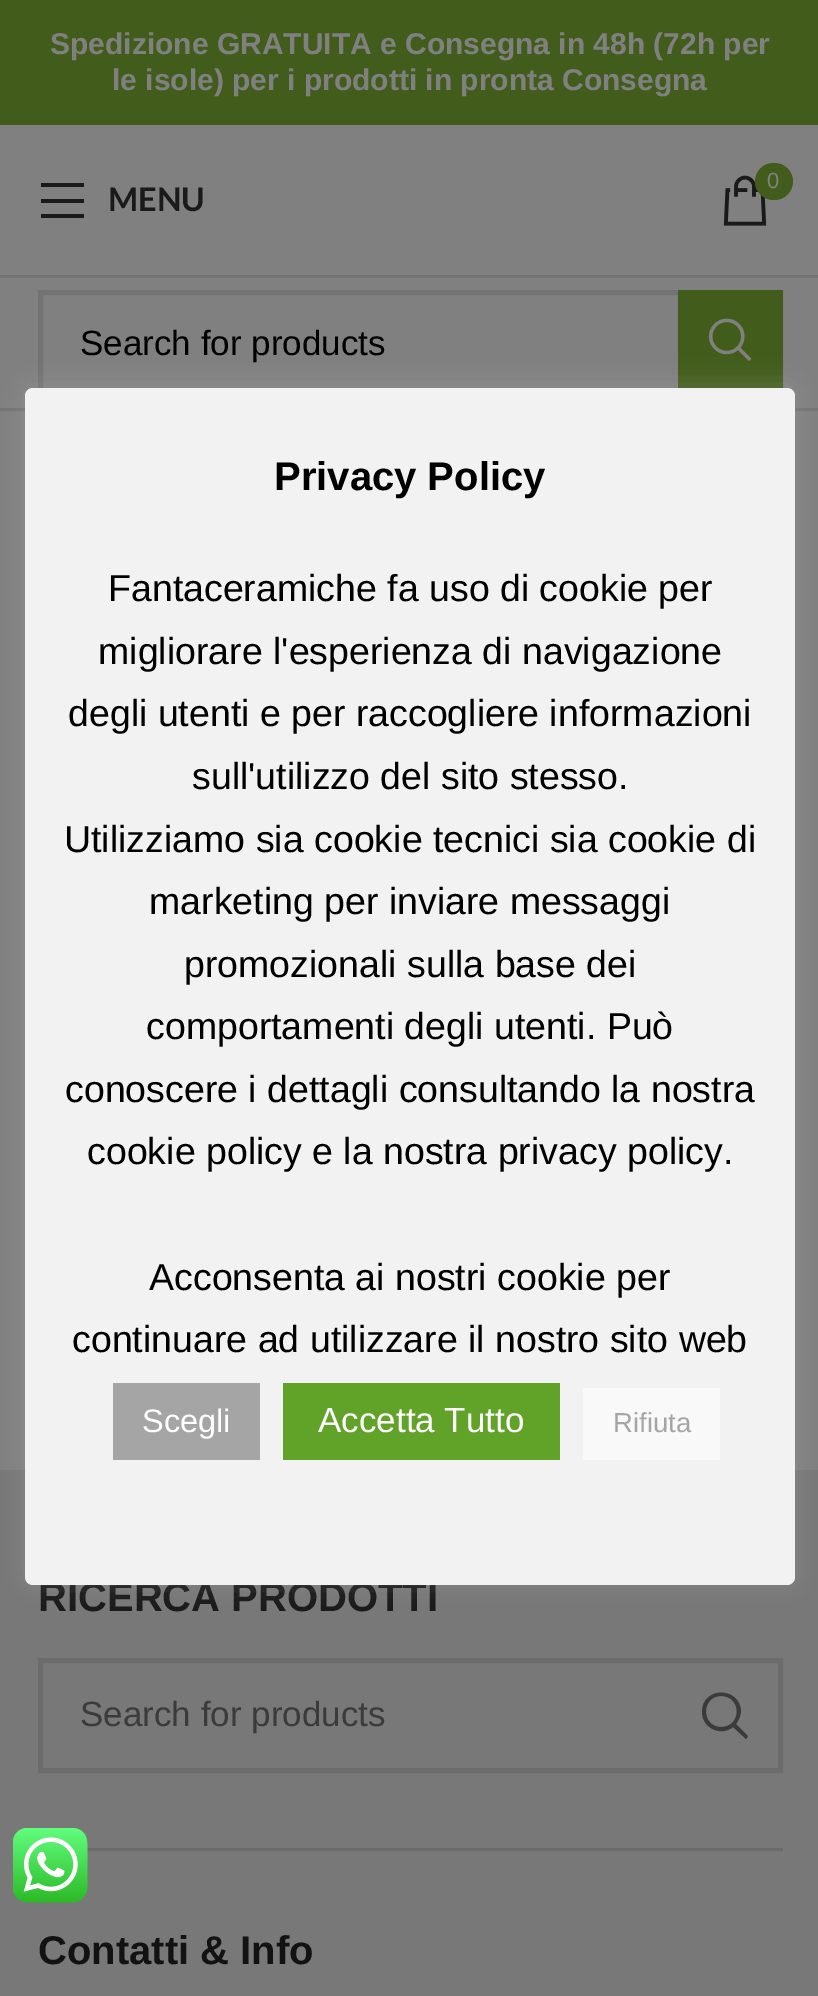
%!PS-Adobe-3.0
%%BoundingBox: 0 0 818 1996
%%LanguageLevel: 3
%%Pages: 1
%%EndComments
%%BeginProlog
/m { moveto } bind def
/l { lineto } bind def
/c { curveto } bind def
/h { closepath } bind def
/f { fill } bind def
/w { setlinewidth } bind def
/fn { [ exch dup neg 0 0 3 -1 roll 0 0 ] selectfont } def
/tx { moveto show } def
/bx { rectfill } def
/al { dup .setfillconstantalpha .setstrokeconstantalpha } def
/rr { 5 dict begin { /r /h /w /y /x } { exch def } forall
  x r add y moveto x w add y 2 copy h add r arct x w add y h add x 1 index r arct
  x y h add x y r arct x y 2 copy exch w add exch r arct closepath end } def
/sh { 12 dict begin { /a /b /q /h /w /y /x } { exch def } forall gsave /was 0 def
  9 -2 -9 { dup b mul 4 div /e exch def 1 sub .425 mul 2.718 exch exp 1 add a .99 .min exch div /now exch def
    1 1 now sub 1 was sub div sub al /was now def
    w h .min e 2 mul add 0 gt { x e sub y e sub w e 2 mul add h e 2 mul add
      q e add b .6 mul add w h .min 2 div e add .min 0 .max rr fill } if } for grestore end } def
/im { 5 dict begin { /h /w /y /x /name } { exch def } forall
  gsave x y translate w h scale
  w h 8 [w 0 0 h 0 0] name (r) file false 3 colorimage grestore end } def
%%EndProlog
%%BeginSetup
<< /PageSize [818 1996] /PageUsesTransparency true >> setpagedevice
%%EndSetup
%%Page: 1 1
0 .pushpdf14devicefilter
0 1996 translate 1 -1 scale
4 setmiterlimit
0.502 setgray
0 0 818 1996 bx
0.259 0.361 0.106 setrgbcolor
0 0 818 125 bx
/LiberationSans-Bold 30 fn
0.502 setgray
(Spedizione GRATUITA e Consegna in 48h \(72h per) 50 54 tx
(le isole\) per i prodotti in pronta Consegna) 112 90 tx
0.455 setgray
0 275 818 3 bx
(image0.raw) 723 175 44 51 im
0.259 0.361 0.106 setrgbcolor
755 163 38 37 18.5 rr f
/LiberationSans-Regular 22 fn
0.502 setgray
(0) 767 188 tx
0.102 setgray
41 187 m 84 187 l 84 183 l 41 183 l h 41 203 m 84 203 l 84 199 l 41 199 l h 41 218 m 84 218 l 84 214 l 41 214 l h f
/Lato-Bold 32.5 fn
(MENU) 108 211 tx
0.455 setgray
0 408 818 3 bx
0.451 setgray
5 w
40.5 292.5 740 100 rectstroke
/LiberationSans-Regular 35 fn
0 setgray
(Search for products) 80 355 tx
0.259 0.361 0.106 setrgbcolor
678 290 105 98 bx
(image1.raw) 708 318 44 44 im
0.471 setgray
0 1470 818 526 bx
0.42 setgray
87 1848 696 3 bx
/LiberationSans-Bold 40 fn
0.102 setgray
(RICERCA PRODOTTI) 38 1611 tx
0.424 setgray
40.5 1660.5 740 110 rectstroke
/LiberationSans-Regular 35 fn
0.231 setgray
(Search for products) 80 1726 tx
702 1712 m 702 1728 721 1737 733 1727 c 746 1739 l 748 1736 l 736 1724 l 739 1720 741 1715 741 1710 c 738 1686 702 1687 702 1712 c h 721 1727 m 701 1727 701 1696 721 1696 c 742 1696 742 1727 721 1727 c h f
/LiberationSans-Bold 40 fn
0.071 setgray
(Contatti & Info) 38 1964 tx
0.675 0.671 0.671 setrgbcolor
25 385 770 1198 8 12.5 0.3 sh
0.949 setgray
25 388 770 1197 8 rr f
0 setgray
(Privacy Policy) 274 490 tx
/LiberationSans-Regular 37.5 fn
(Fantaceramiche fa uso di cookie per) 108 601 tx
(migliorare l'esperienza di navigazione) 98 664 tx
(degli utenti e per raccogliere informazioni) 68 726 tx
(sull'utilizzo del sito stesso.) 192 789 tx
(Utilizziamo sia cookie tecnici sia cookie di) 64 852 tx
(marketing per inviare messaggi) 149 914 tx
(promozionali sulla base dei) 184 977 tx
(comportamenti degli utenti. Può) 146 1039 tx
(conoscere i dettagli consultando la nostra) 65 1102 tx
(cookie policy e la nostra privacy policy.) 87 1164 tx
(Acconsenta ai nostri cookie per) 149 1290 tx
(continuare ad utilizzare il nostro sito web) 72 1352 tx
0.647 setgray
113 1383 147 77 bx
/LiberationSans-Regular 32.5 fn
1 setgray
(Scegli) 142 1432 tx
0.38 0.635 0.161 setrgbcolor
283 1383 277 77 bx
/LiberationSans-Regular 35 fn
1 setgray
(Accetta Tutto) 318 1432 tx
0.976 setgray
583 1388 137 72 bx
/LiberationSans-Regular 27.5 fn
0.647 setgray
(Rifiuta) 613 1432 tx
(image2.raw) 13 1828 75 75 im
.poppdf14devicefilter showpage
%%EOF
